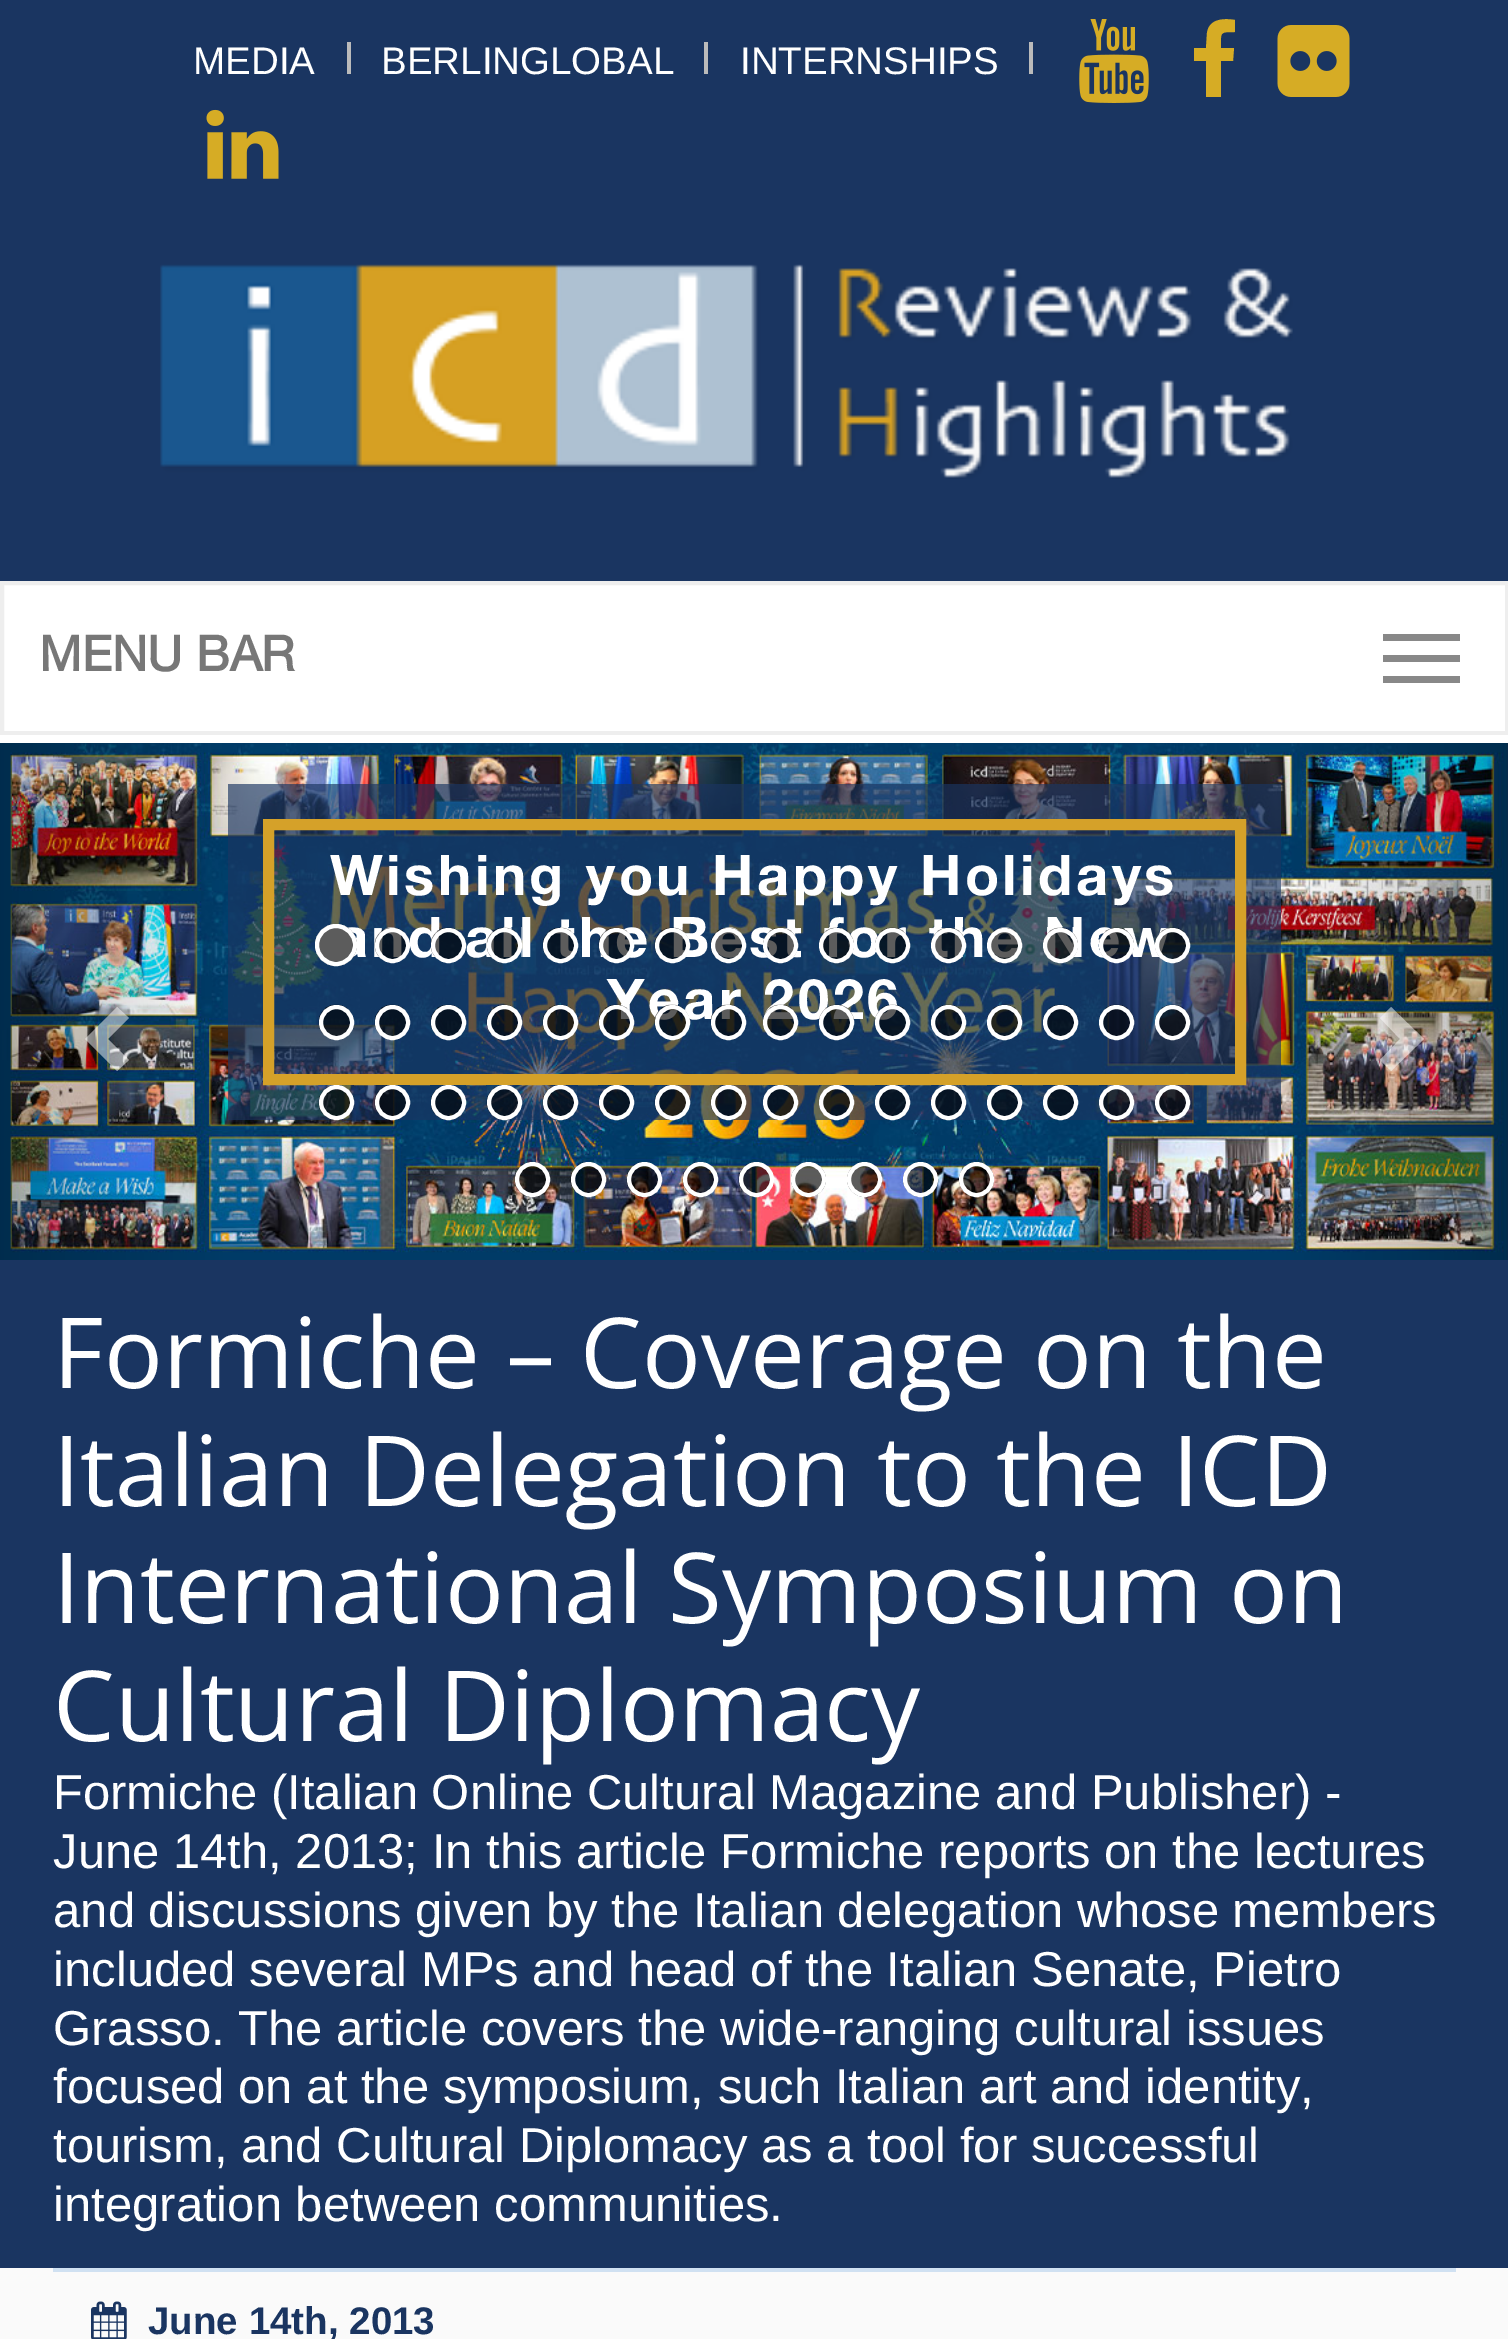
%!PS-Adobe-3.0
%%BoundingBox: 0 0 1508 2339
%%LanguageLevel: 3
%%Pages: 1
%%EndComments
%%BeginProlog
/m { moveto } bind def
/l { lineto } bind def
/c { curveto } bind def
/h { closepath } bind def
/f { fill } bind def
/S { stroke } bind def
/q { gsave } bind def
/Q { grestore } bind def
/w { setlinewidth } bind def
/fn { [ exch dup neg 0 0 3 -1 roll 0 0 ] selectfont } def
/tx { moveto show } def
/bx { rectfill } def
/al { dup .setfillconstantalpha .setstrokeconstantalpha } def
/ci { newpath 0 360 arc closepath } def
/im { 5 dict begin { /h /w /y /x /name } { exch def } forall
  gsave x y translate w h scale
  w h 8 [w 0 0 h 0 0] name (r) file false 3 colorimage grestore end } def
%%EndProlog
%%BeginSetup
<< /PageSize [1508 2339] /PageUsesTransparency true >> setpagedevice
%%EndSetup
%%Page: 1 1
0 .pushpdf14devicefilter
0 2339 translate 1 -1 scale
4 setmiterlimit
0.98 setgray
0 0 1508 2339 bx
0.102 0.208 0.38 setrgbcolor
0 0 1508 581 bx
/LiberationSans-Regular 38.5 fn
1 setgray
(MEDIA) 193 74 tx
0.733 setgray
347 42 4 32 bx
1 setgray
(BERLINGLOBAL) 381 74 tx
0.733 setgray
704 42 4 32 bx
1 setgray
(INTERNSHIPS) 740 74 tx
0.733 setgray
1029 42 4 32 bx
(image0.raw) 1079 19 70 84 im
0.839 0.675 0.145 setrgbcolor
1194 61 m 1194 48 l 1206 48 l 1207 33 l 1209 19 1223 18 1235 20 c 1235 32 l 1219 32 1221 32 1221 48 c 1234 48 l 1233 61 l 1221 61 l 1221 97 l 1206 97 l 1206 61 l h f
(image1.raw) 1277 25 73 72 im
(image2.raw) 206 109 73 70 im
(image3.raw) 160 264 1133 215 im
1 setgray
2 583 m 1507 583 l 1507 733 l 2 733 l h q f Q
0.933 setgray
4 w
S
/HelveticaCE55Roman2-Bold 49 fn
0.467 setgray
(MENU BAR) 39 671 tx
0.533 setgray
1383 634 77 7 bx
1383 655 77 7 bx
1383 676 77 7 bx
1 setgray
0 735 1508 8 bx
(image4.raw) 0 743 1508 517 im
0.66 al
0.102 0.208 0.38 setrgbcolor
228 784 1053 336 bx
1 al
0.835 0.631 0.161 setrgbcolor
11 w
268.5 824.5 972 255 rectstroke
/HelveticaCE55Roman-Bold 56 fn
1 setgray
330 895 m 3.5 0 (Wishing you Happy Holidays) ashow
336 957 m 3.5 0 (and all the Best for the New) ashow
607 1019 m 3.5 0 (Year 2026) ashow
0.5 al
129 1018 m 108 1039 l 129 1060 l 117 1071 l 85 1039 l 117 1007 l h f
1 al
336 945 21 ci f
(image5.raw) 315 924 42 42 im
4 w
336 945 19 ci S
(image6.raw) 374 927 36 36 im
392.5 945.5 15.5 ci S
(image7.raw) 430 927 36 36 im
448.5 945.5 15.5 ci S
(image8.raw) 486 927 36 36 im
504.5 945.5 15.5 ci S
(image9.raw) 542 927 36 36 im
560.5 945.5 15.5 ci S
(image10.raw) 598 927 36 36 im
616.5 945.5 15.5 ci S
(image11.raw) 654 927 36 36 im
672.5 945.5 15.5 ci S
(image12.raw) 710 927 36 36 im
728.5 945.5 15.5 ci S
(image13.raw) 763 927 35 36 im
780.5 945.5 15.5 ci S
(image14.raw) 819 927 35 36 im
836.5 945.5 15.5 ci S
(image15.raw) 875 927 35 36 im
892.5 945.5 15.5 ci S
(image16.raw) 931 927 35 36 im
948.5 945.5 15.5 ci S
(image17.raw) 987 927 35 36 im
1004.5 945.5 15.5 ci S
(image18.raw) 1043 927 35 36 im
1060.5 945.5 15.5 ci S
(image19.raw) 1099 927 35 36 im
1116.5 945.5 15.5 ci S
(image20.raw) 1155 927 35 36 im
1172.5 945.5 15.5 ci S
(image21.raw) 318 1004 36 36 im
336.5 1022.5 15.5 ci S
(image22.raw) 374 1004 36 36 im
392.5 1022.5 15.5 ci S
(image23.raw) 430 1004 36 36 im
448.5 1022.5 15.5 ci S
(image24.raw) 486 1004 36 36 im
504.5 1022.5 15.5 ci S
(image25.raw) 542 1004 36 36 im
560.5 1022.5 15.5 ci S
(image26.raw) 598 1004 36 36 im
616.5 1022.5 15.5 ci S
(image27.raw) 654 1004 36 36 im
672.5 1022.5 15.5 ci S
(image28.raw) 710 1004 36 36 im
728.5 1022.5 15.5 ci S
(image29.raw) 763 1004 35 36 im
780.5 1022.5 15.5 ci S
(image30.raw) 819 1004 35 36 im
836.5 1022.5 15.5 ci S
(image31.raw) 875 1004 35 36 im
892.5 1022.5 15.5 ci S
(image32.raw) 931 1004 35 36 im
948.5 1022.5 15.5 ci S
(image33.raw) 987 1004 35 36 im
1004.5 1022.5 15.5 ci S
(image34.raw) 1043 1004 35 36 im
1060.5 1022.5 15.5 ci S
(image35.raw) 1099 1004 35 36 im
1116.5 1022.5 15.5 ci S
(image36.raw) 1155 1004 35 36 im
1172.5 1022.5 15.5 ci S
(image37.raw) 318 1085 36 35 im
336.5 1102.5 15.5 ci S
(image38.raw) 374 1085 36 35 im
392.5 1102.5 15.5 ci S
(image39.raw) 430 1085 36 35 im
448.5 1102.5 15.5 ci S
(image40.raw) 486 1085 36 35 im
504.5 1102.5 15.5 ci S
(image41.raw) 542 1085 36 35 im
560.5 1102.5 15.5 ci S
(image42.raw) 598 1085 36 35 im
616.5 1102.5 15.5 ci S
(image43.raw) 654 1085 36 35 im
672.5 1102.5 15.5 ci S
(image44.raw) 710 1085 36 35 im
728.5 1102.5 15.5 ci S
(image45.raw) 763 1085 35 35 im
780.5 1102.5 15.5 ci S
(image46.raw) 819 1085 35 35 im
836.5 1102.5 15.5 ci S
(image47.raw) 875 1085 35 35 im
892.5 1102.5 15.5 ci S
(image48.raw) 931 1085 35 35 im
948.5 1102.5 15.5 ci S
(image49.raw) 987 1085 35 35 im
1004.5 1102.5 15.5 ci S
(image50.raw) 1043 1085 35 35 im
1060.5 1102.5 15.5 ci S
(image51.raw) 1099 1085 35 35 im
1116.5 1102.5 15.5 ci S
(image52.raw) 1155 1085 35 35 im
1172.5 1102.5 15.5 ci S
(image53.raw) 514 1162 36 35 im
532.5 1179.5 15.5 ci S
(image54.raw) 570 1162 36 35 im
588.5 1179.5 15.5 ci S
(image55.raw) 626 1162 36 35 im
644.5 1179.5 15.5 ci S
(image56.raw) 682 1162 36 35 im
700.5 1179.5 15.5 ci S
(image57.raw) 738 1162 36 35 im
756.5 1179.5 15.5 ci S
(image58.raw) 791 1162 35 35 im
808.5 1179.5 15.5 ci S
(image59.raw) 847 1162 35 35 im
864.5 1179.5 15.5 ci S
(image60.raw) 903 1162 35 35 im
920.5 1179.5 15.5 ci S
(image61.raw) 959 1162 35 35 im
976.5 1179.5 15.5 ci S
0.5 al
1424 1039 m 1391 1071 l 1380 1060 l 1400 1039 l 1380 1018 l 1391 1007 l h f
1 al
0.102 0.208 0.38 setrgbcolor
0 1260 1508 1008 bx
/OpenSans-Regular 98 fn
1 setgray
(Formiche – Coverage on the) 53 1388 tx
(Italian Delegation to the ICD) 53 1506 tx
(International Symposium on) 53 1623 tx
(Cultural Diplomacy) 53 1741 tx
/LiberationSans-Regular 49 fn
(Formiche \(Italian Online Cultural Magazine and Publisher\) -) 53 1809 tx
(June 14th, 2013; In this article Formiche reports on the lectures) 53 1868 tx
(and discussions given by the Italian delegation whose members) 53 1927 tx
(included several MPs and head of the Italian Senate, Pietro) 53 1986 tx
(Grasso. The article covers the wide-ranging cultural issues) 53 2045 tx
(focused on at the symposium, such Italian art and identity,) 53 2103 tx
(tourism, and Cultural Diplomacy as a tool for successful) 53 2162 tx
(integration between communities.) 53 2221 tx
0.816 0.882 0.949 setrgbcolor
53 2268 1403 4 bx
(image62.raw) 91 2301 36 38 im
/LiberationSans-Bold 38.5 fn
0.102 0.208 0.38 setrgbcolor
(June 14th, 2013) 148 2334 tx
.poppdf14devicefilter showpage
%%EOF
